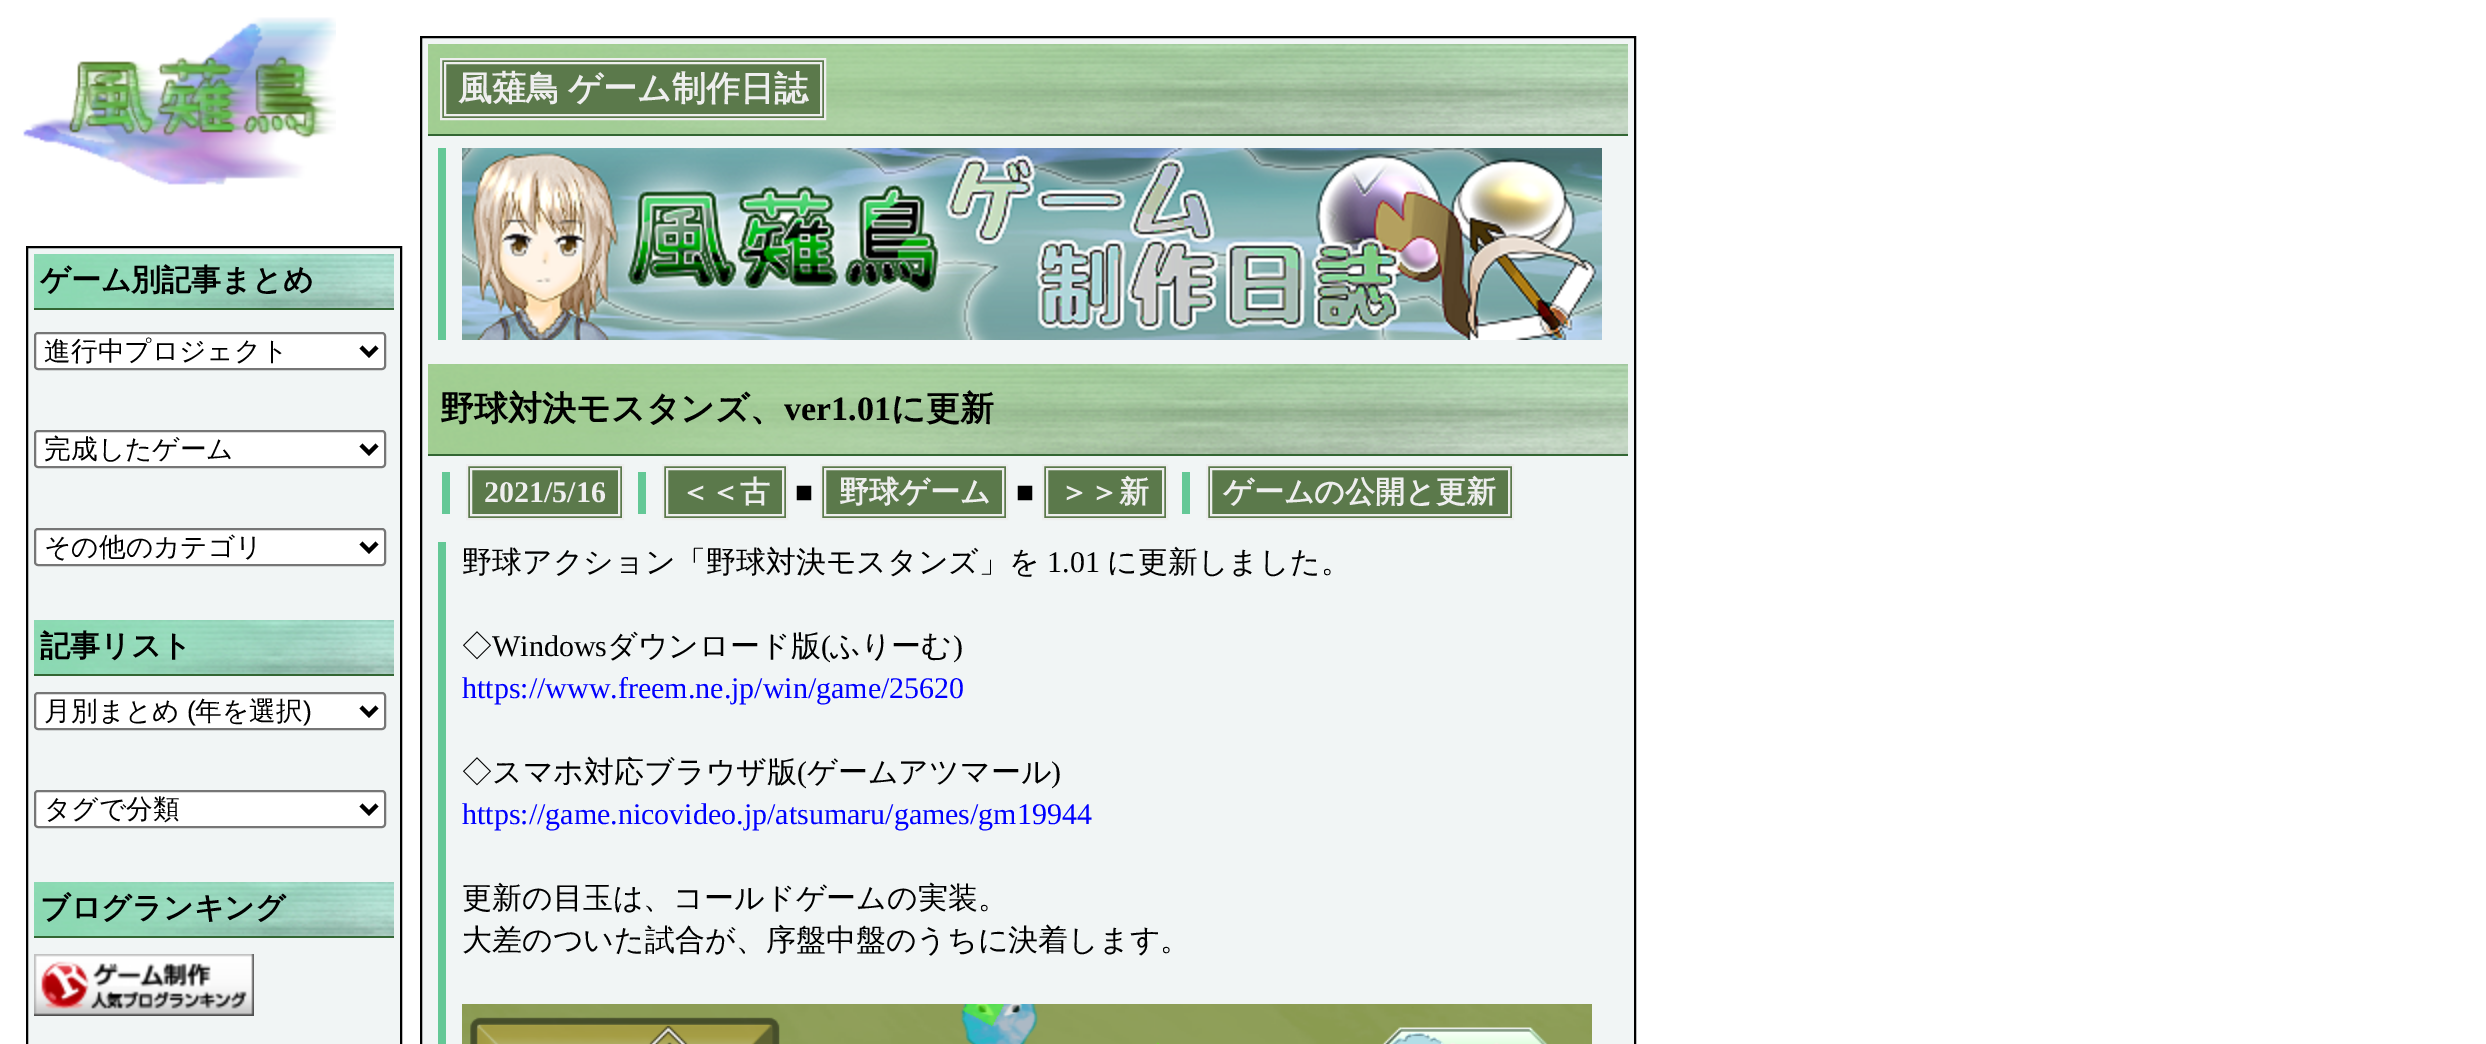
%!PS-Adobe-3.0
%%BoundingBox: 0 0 2486 1044
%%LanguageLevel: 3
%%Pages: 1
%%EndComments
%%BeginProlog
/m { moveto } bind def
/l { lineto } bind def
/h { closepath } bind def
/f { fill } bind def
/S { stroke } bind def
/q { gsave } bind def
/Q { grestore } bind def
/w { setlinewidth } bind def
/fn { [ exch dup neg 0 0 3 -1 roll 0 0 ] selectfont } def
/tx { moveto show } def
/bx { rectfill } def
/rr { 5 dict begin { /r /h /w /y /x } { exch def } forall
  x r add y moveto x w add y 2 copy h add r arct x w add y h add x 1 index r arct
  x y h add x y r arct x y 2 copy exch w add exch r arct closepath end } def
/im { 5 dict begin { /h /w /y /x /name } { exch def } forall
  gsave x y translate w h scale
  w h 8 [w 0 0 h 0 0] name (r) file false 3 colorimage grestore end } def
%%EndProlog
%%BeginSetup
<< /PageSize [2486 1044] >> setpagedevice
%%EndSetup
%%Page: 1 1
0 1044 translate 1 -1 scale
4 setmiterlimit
1 setgray
0 0 2486 1044 bx
(image0.raw) 23 17 313 168 im
0.945 0.961 0.961 setrgbcolor
421 37 m 1635 37 l 1635 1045 l 421 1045 l h q f Q
0 setgray
2 w
S
(image1.raw) 428 44 1200 90 im
0.2 0.4 0.2 setrgbcolor
428 134 1200 2 bx
0.357 0.475 0.294 setrgbcolor
441 59 m 825 59 l 825 119 l 441 119 l h q f Q
0.933 setgray
S
445 63 376 52 rectstroke
/WenQuanYiZenHei-Bold 34 fn
458 100 m -2 0 32 (風薙鳥 ゲーム制作日誌) widthshow
0.392 0.784 0.588 setrgbcolor
438 148 8 192 bx
(image2.raw) 462 148 1140 192 im
(image1.raw) 428 364 1200 90 im
0.2 0.4 0.2 setrgbcolor
428 454 1200 2 bx
0 setgray
(野球対決モスタンズ、) 440 420 tx
/LiberationSerif-Bold 34 fn
(ver1.01) 784 420 tx
/WenQuanYiZenHei-Bold 34 fn
(に更新) 891 420 tx
0.392 0.784 0.588 setrgbcolor
442 472 8 42 bx
0.357 0.475 0.294 setrgbcolor
467 465 m 623 465 l 623 519 l 467 519 l h q f Q
0.933 setgray
S
471 469 148 46 rectstroke
/LiberationSerif-Bold 30 fn
(2021/5/16) 484 502 tx
0.392 0.784 0.588 setrgbcolor
638 472 8 42 bx
0.357 0.475 0.294 setrgbcolor
663 465 m 787 465 l 787 519 l 663 519 l h q f Q
0.933 setgray
S
667 469 116 46 rectstroke
/WenQuanYiZenHei-Bold 30 fn
(＜＜古) 680 502 tx
/LiberationSerif-Regular 30 fn
0 setgray
(■) 795 502 tx
0.357 0.475 0.294 setrgbcolor
821 465 m 1007 465 l 1007 519 l 821 519 l h q f Q
0.933 setgray
S
825 469 178 46 rectstroke
/WenQuanYiZenHei-Bold 30 fn
(野球ゲーム) 839 502 tx
/LiberationSerif-Regular 30 fn
0 setgray
(■) 1016 502 tx
0.357 0.475 0.294 setrgbcolor
1043 465 m 1167 465 l 1167 519 l 1043 519 l h q f Q
0.933 setgray
S
1047 469 116 46 rectstroke
/WenQuanYiZenHei-Bold 30 fn
(＞＞新) 1059 502 tx
0.392 0.784 0.588 setrgbcolor
1182 472 8 42 bx
0.357 0.475 0.294 setrgbcolor
1207 465 m 1513 465 l 1513 519 l 1207 519 l h q f Q
0.933 setgray
S
1211 469 298 46 rectstroke
(ゲームの公開と更新) 1223 502 tx
0.392 0.784 0.588 setrgbcolor
438 542 8 502 bx
/WenQuanYiZenHei-Medium 30 fn
0 setgray
(野球アクション「野球対決モスタンズ」を) 462 572 tx
/LiberationSerif-Regular 30 fn
(1.01) 1047 572 tx
/WenQuanYiZenHei-Medium 30 fn
(に更新しました。) 1107 572 tx
(◇) 462 656 tx
/LiberationSerif-Regular 30 fn
(Windows) 492 656 tx
/WenQuanYiZenHei-Medium 30 fn
(ダウンロード版) 607 656 tx
/LiberationSerif-Regular 30 fn
(\() 821 656 tx
/WenQuanYiZenHei-Medium 30 fn
(ふりーむ) 830 656 tx
/LiberationSerif-Regular 30 fn
(\)) 953 656 tx
0 0 1 setrgbcolor
(https://www.freem.ne.jp/win/game/25620) 462 698 tx
/WenQuanYiZenHei-Medium 30 fn
0 setgray
(◇スマホ対応ブラウザ版) 462 782 tx
/LiberationSerif-Regular 30 fn
(\() 797 782 tx
/WenQuanYiZenHei-Medium 30 fn
(ゲームアツマール) 807 782 tx
/LiberationSerif-Regular 30 fn
(\)) 1051 782 tx
0 0 1 setrgbcolor
(https://game.nicovideo.jp/atsumaru/games/gm19944) 462 824 tx
/WenQuanYiZenHei-Medium 30 fn
0 setgray
(更新の目玉は、コールドゲームの実装。) 462 908 tx
(大差のついた試合が、序盤中盤のうちに決着します。) 462 950 tx
(image3.raw) 462 1004 1130 40 im
0.945 0.961 0.961 setrgbcolor
27 247 m 401 247 l 401 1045 l 27 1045 l h q f Q
0 setgray
S
(image4.raw) 34 254 360 54 im
0.2 0.4 0.2 setrgbcolor
34 308 360 2 bx
/WenQuanYiZenHei-Bold 30 fn
0 setgray
(ゲーム別記事まとめ) 40 290 tx
1 setgray
35 333 350 36 3 rr q f Q
0.463 setgray
S
0 setgray
4 w
361 347 m 369 355 l 377 347 l S
/WenQuanYiZenHei-Medium 26.75 fn
(進行中プロジェクト) 44 360 tx
1 setgray
35 431 350 36 3 rr q f Q
0.463 setgray
2 w
S
0 setgray
4 w
361 445 m 369 453 l 377 445 l S
(完成したゲーム) 44 458 tx
1 setgray
35 529 350 36 3 rr q f Q
0.463 setgray
2 w
S
0 setgray
4 w
361 543 m 369 551 l 377 543 l S
(その他のカテゴリ) 44 556 tx
(image4.raw) 34 620 360 54 im
0.2 0.4 0.2 setrgbcolor
34 674 360 2 bx
/WenQuanYiZenHei-Bold 30 fn
0 setgray
(記事リスト) 40 656 tx
1 setgray
35 693 350 36 3 rr q f Q
0.463 setgray
2 w
S
0 setgray
4 w
361 707 m 369 715 l 377 707 l S
/WenQuanYiZenHei-Medium 26.75 fn
(月別まとめ) 44 720 tx
/LiberationSans-Regular 26.75 fn
(\() 187 720 tx
/WenQuanYiZenHei-Medium 26.75 fn
(年を選択) 195 720 tx
/LiberationSans-Regular 26.75 fn
(\)) 303 720 tx
1 setgray
35 791 350 36 3 rr q f Q
0.463 setgray
2 w
S
0 setgray
4 w
361 805 m 369 813 l 377 805 l S
/WenQuanYiZenHei-Medium 26.75 fn
(タグで分類) 44 818 tx
(image4.raw) 34 882 360 54 im
0.2 0.4 0.2 setrgbcolor
34 936 360 2 bx
/WenQuanYiZenHei-Bold 30 fn
0 setgray
(ブログランキング) 40 918 tx
(image5.raw) 34 954 220 62 im
showpage
%%EOF
